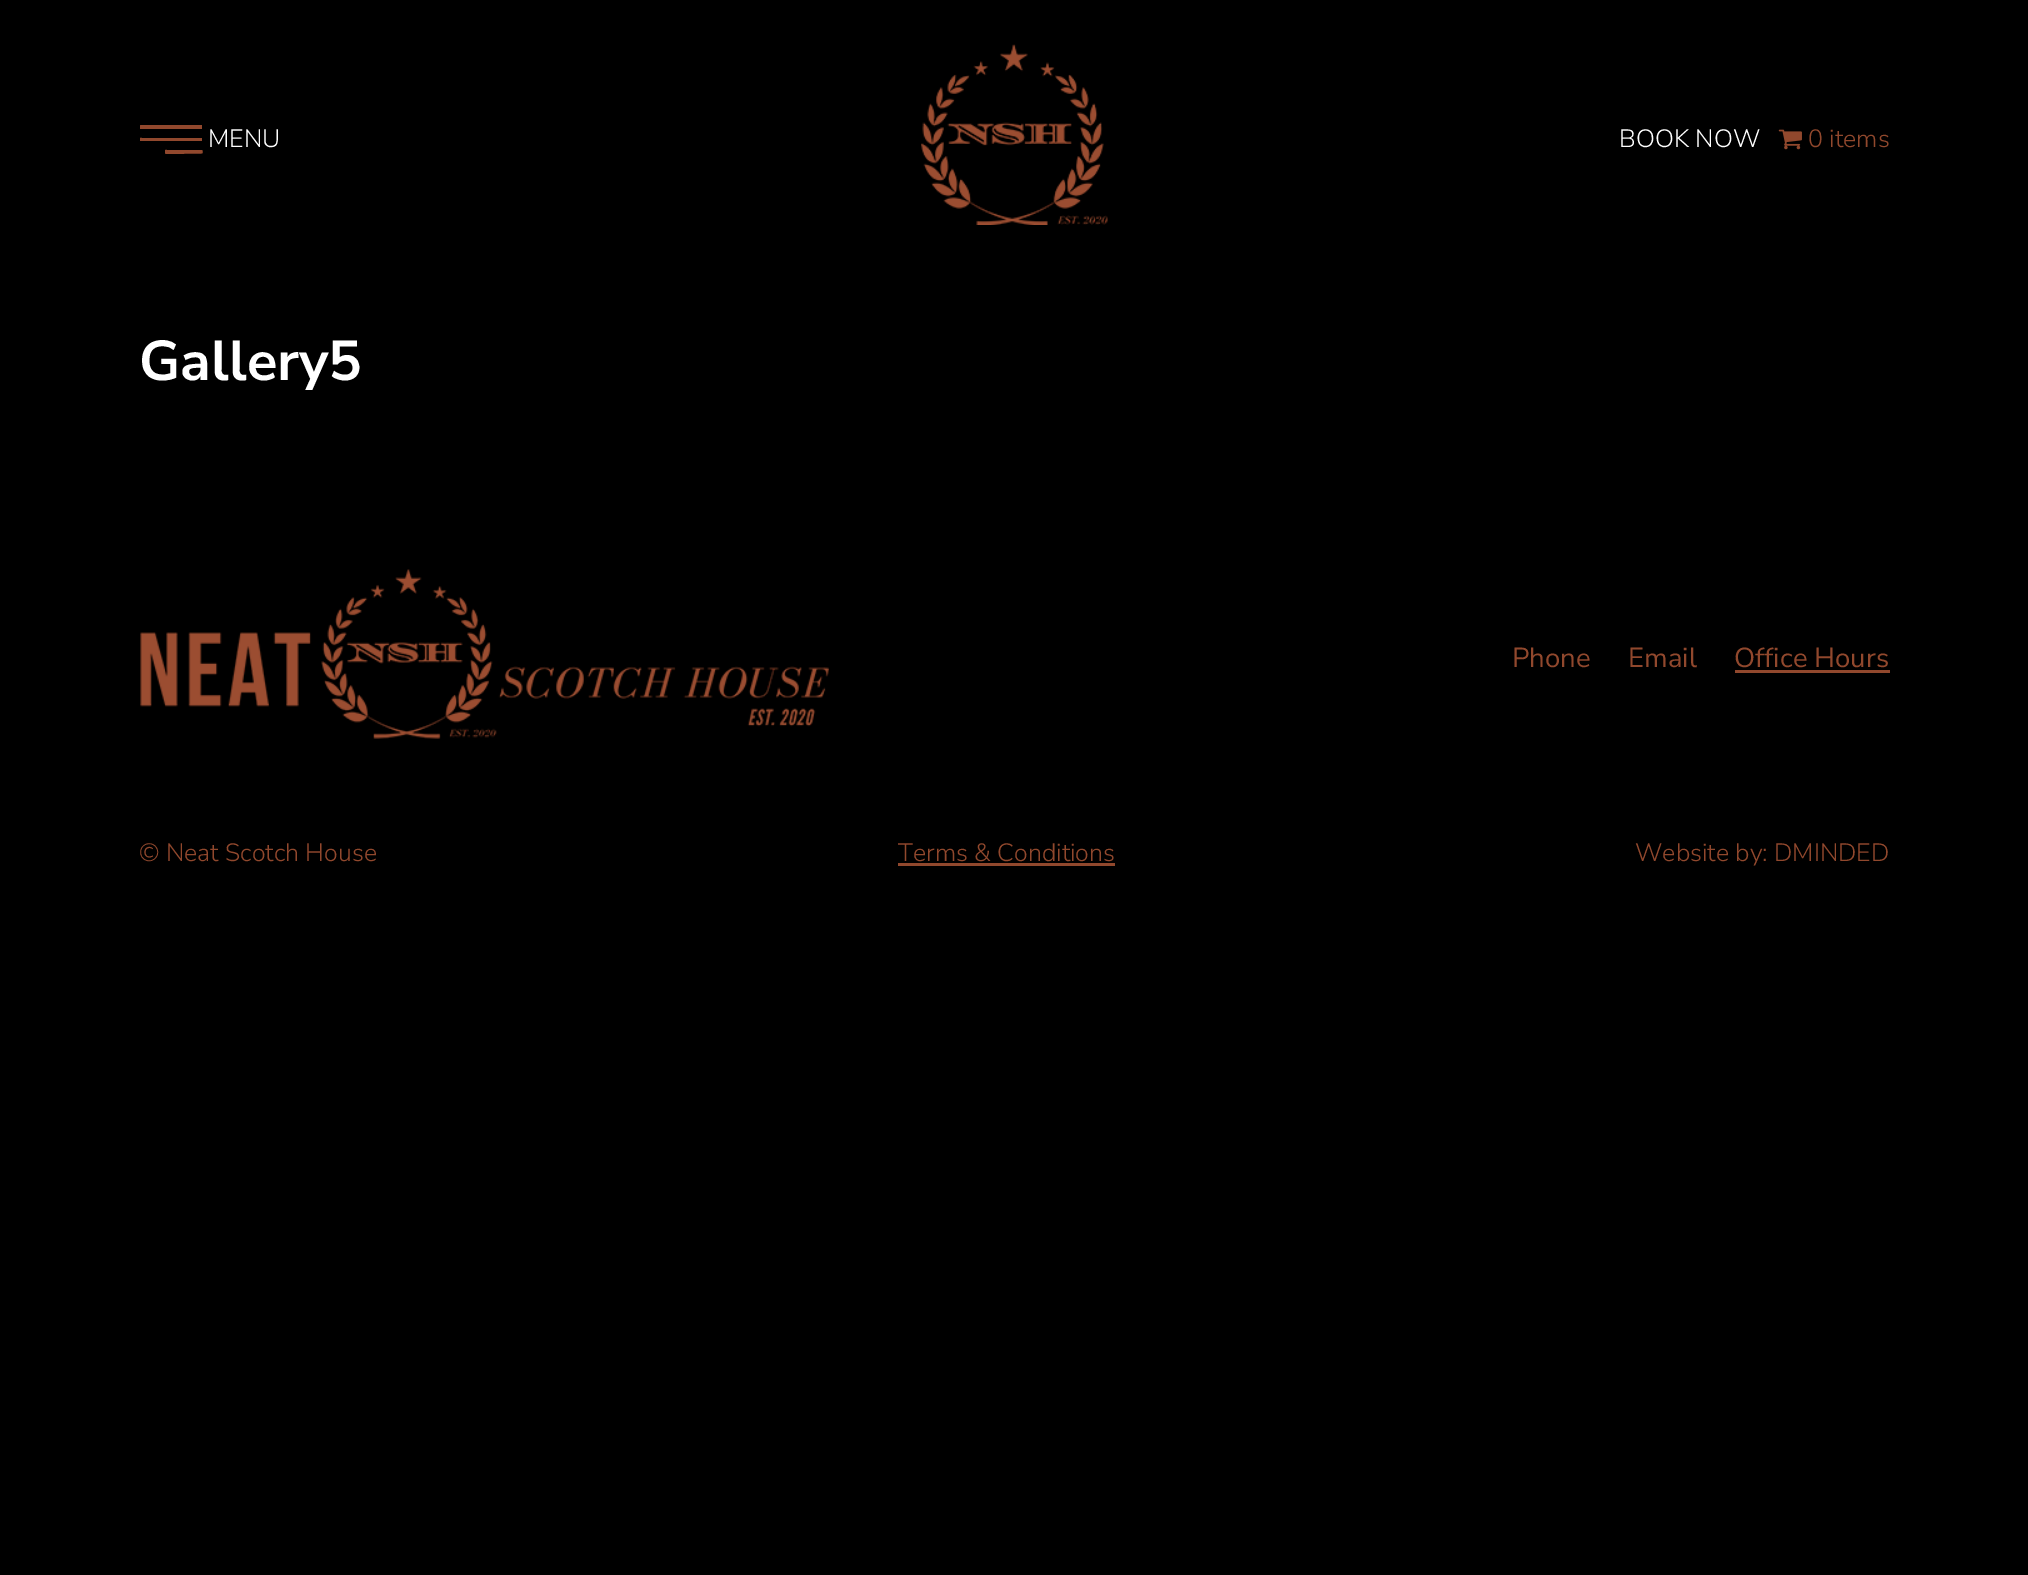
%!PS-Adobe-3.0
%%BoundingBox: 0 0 2028 1575
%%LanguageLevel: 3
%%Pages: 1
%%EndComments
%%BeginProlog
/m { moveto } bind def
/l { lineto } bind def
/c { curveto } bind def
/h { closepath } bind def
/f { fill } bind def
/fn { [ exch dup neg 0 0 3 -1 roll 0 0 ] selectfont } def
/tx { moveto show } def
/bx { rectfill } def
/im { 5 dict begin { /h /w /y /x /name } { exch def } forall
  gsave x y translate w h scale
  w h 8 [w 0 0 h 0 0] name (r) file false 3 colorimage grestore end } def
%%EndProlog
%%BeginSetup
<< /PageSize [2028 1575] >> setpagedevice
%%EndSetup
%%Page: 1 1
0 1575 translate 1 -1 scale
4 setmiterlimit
0 setgray
0 0 2028 1575 bx
0.569 0.282 0.176 setrgbcolor
143 125 m 202 125 l 202 129 l 141 129 l 140 129 140 129 140 127 c 140 125 140 125 142 125 c h 143 138 m 202 138 l 202 141 l 141 141 l 140 141 140 141 140 139 c 140 137 140 138 142 138 c h 167 150 m 202.5 150 l 202.5 151 l 202.5 152 203 153.5 201.5 153.5 c 167 154 l 165 153.5 165 154 165 152 c 165 149.5 165 150 167 150 c h f
/NunitoSans-Light 25 fn
1 setgray
(MENU) 208 147 tx
(image0.raw) 921 44 187 181 im
(BOOK NOW) 1619 147 tx
(image1.raw) 1778 129 24 21 im
0.569 0.282 0.176 setrgbcolor
(0 items) 1808 147 tx
/NunitoSans-Bold 56 fn
1 setgray
(Gallery5) 139 380 tx
(image2.raw) 140 569 689 170 im
/NunitoSans-Regular 27.5 fn
0.569 0.282 0.176 setrgbcolor
(Phone) 1512 667 tx
(Email) 1628 667 tx
(Office Hours) 1734 667 tx
1735 670 155 3 bx
/NunitoSans-Light 25 fn
(© Neat Scotch House) 139 861 tx
(Terms & Conditions) 898 861 tx
898 863 217 3 bx
(Website by: DMINDED) 1635 861 tx
showpage
%%EOF
